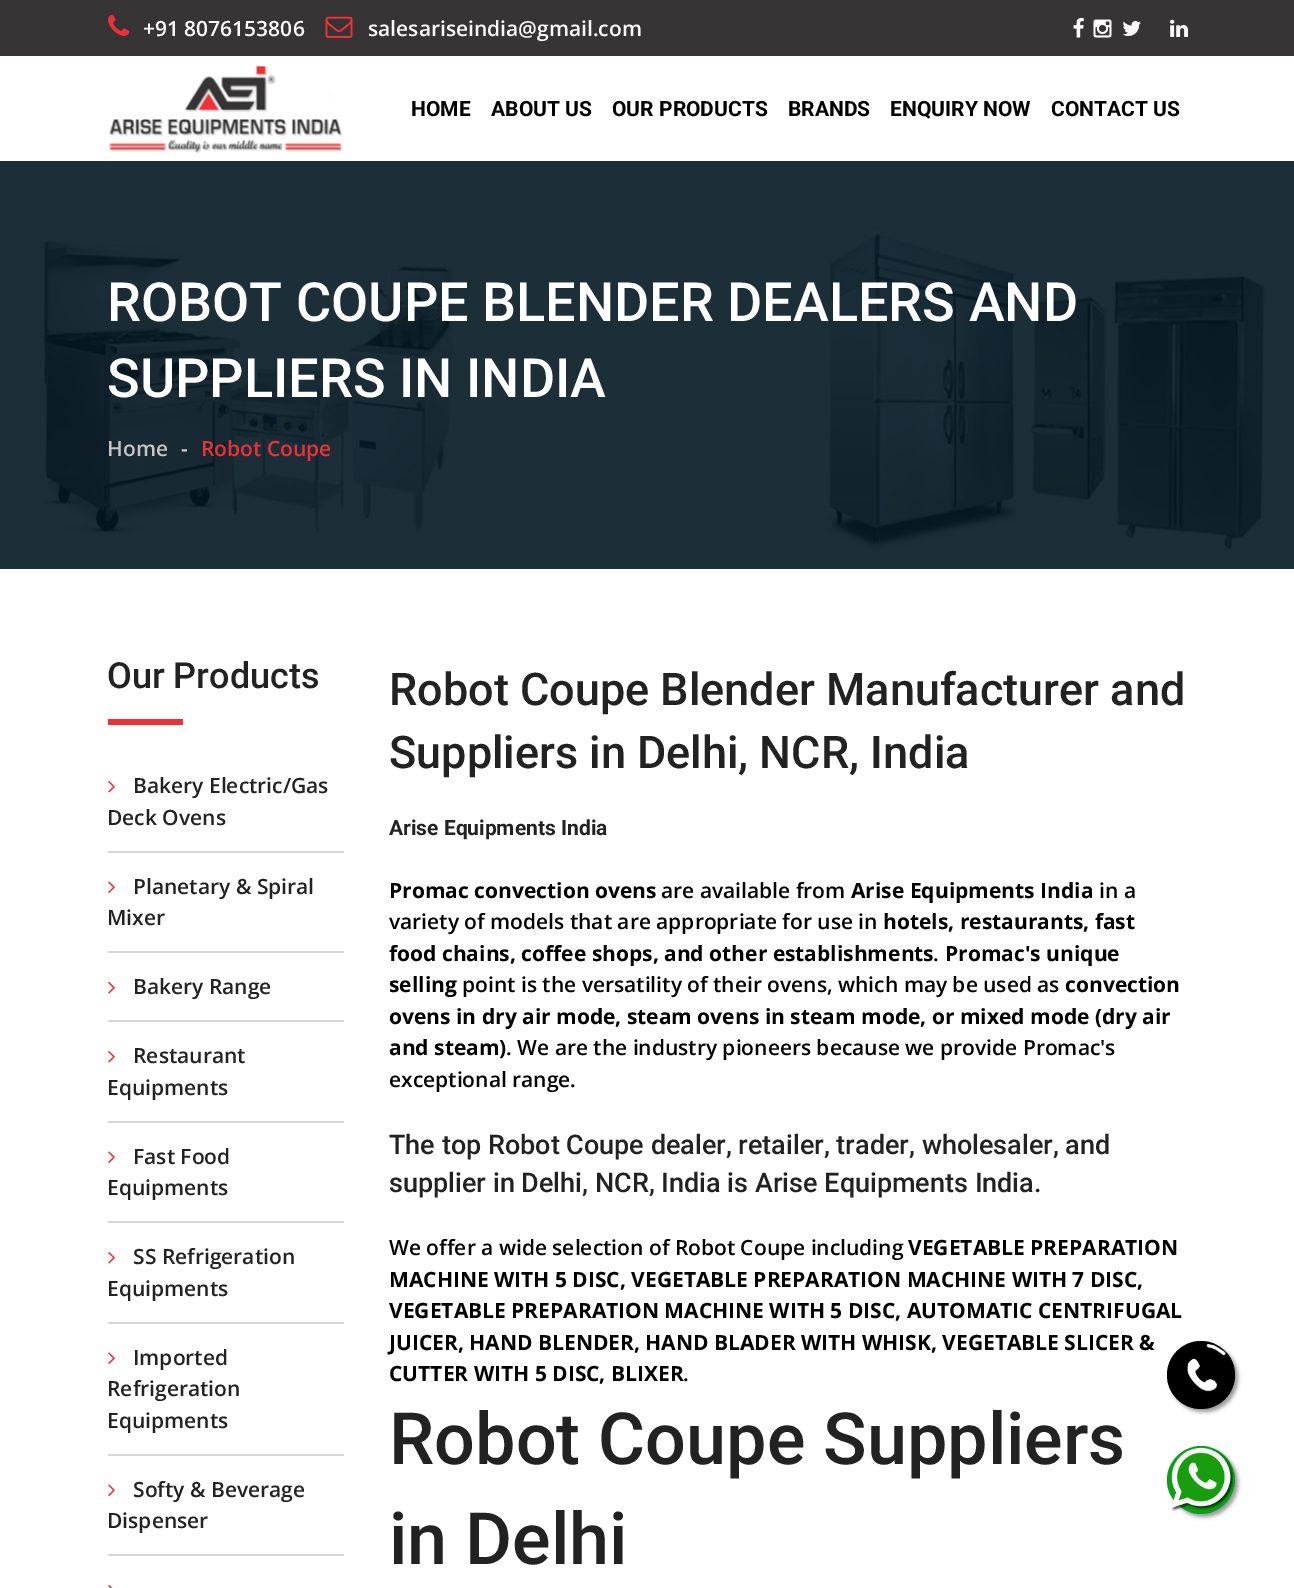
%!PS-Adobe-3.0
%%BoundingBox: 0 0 1294 1588
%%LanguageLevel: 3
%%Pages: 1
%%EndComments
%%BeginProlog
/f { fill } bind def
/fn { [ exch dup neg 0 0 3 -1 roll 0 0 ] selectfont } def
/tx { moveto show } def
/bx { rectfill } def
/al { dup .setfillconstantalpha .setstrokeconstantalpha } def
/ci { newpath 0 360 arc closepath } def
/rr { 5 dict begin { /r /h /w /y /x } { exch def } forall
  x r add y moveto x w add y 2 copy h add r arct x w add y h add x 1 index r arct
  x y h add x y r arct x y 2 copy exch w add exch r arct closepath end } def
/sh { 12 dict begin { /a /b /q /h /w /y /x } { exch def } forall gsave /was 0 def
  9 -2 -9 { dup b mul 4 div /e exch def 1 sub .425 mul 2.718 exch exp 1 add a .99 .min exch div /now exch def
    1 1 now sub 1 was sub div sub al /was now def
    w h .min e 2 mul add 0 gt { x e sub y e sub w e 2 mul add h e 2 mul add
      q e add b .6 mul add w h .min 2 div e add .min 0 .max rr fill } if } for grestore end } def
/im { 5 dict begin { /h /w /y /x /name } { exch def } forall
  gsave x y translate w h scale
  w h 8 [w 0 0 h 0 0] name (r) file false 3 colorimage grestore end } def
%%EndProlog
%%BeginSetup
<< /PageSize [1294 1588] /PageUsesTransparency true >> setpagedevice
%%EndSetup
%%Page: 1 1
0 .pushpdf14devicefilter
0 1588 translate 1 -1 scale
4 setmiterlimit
1 setgray
0 0 1294 1588 bx
0.11 0.18 0.22 setrgbcolor
0 161 1294 408 bx
0.212 0.204 0.208 setrgbcolor
0 0 1294 56 bx
(image0.raw) 108 14 22 22 im
/OpenSans-SemiBold 21 fn
1 setgray
(+91 8076153806) 143 36 tx
(image1.raw) 325 16 28 22 im
(salesariseindia@gmail.com) 368 36 tx
(image2.raw) 1073 18 11 20 im
(image3.raw) 1093 19 19 19 im
(image4.raw) 1122 21 19 15 im
(image5.raw) 1170 19 18 18 im
(image6.raw) 109 65 234 88 im
/Roboto-Bold 21 fn
0 setgray
(HOME) 411 116 tx
(ABOUT US) 491 116 tx
(OUR PRODUCTS) 612 116 tx
(BRANDS) 788 116 tx
(ENQUIRY NOW) 890 116 tx
(CONTACT US) 1051 116 tx
(image7.raw) 0 162 1294 407 im
/Roboto-Medium 54 fn
1 setgray
(ROBOT COUPE BLENDER DEALERS AND) 107 321 tx
(SUPPLIERS IN INDIA) 107 397 tx
/OpenSans-SemiBold 21 fn
0.776 setgray
(Home) 107 456 tx
0.8 setgray
(-) 181 456 tx
0.929 0.196 0.216 setrgbcolor
(Robot Coupe) 201 456 tx
/Roboto-Medium 36 fn
0.133 setgray
(Our Products) 107 688 tx
0.929 0.196 0.216 setrgbcolor
108 719 75 6 bx
0.843 setgray
108 851 236 2 bx
(image8.raw) 108 781 7 12 im
/OpenSans-SemiBold 21 fn
0.133 setgray
(Bakery Electric/Gas) 133 793 tx
(Deck Ovens) 107 825 tx
0.843 setgray
108 951 236 2 bx
(image9.raw) 108 881 7 12 im
0.133 setgray
(Planetary & Spiral) 133 894 tx
(Mixer) 107 925 tx
0.843 setgray
108 1020 236 2 bx
(image8.raw) 108 982 7 12 im
0.133 setgray
(Bakery Range) 133 994 tx
0.843 setgray
108 1121 236 2 bx
(image8.raw) 108 1051 7 12 im
0.133 setgray
(Restaurant) 133 1063 tx
(Equipments) 107 1095 tx
0.843 setgray
108 1221 236 2 bx
(image9.raw) 108 1151 7 12 im
0.133 setgray
(Fast Food) 133 1164 tx
(Equipments) 107 1195 tx
0.843 setgray
108 1322 236 2 bx
(image8.raw) 108 1252 7 12 im
0.133 setgray
(SS Refrigeration) 133 1264 tx
(Equipments) 107 1296 tx
0.843 setgray
108 1454 236 2 bx
(image9.raw) 108 1352 7 12 im
0.133 setgray
(Imported) 133 1365 tx
(Refrigeration) 107 1396 tx
(Equipments) 107 1428 tx
0.843 setgray
108 1554 236 2 bx
(image9.raw) 108 1484 7 12 im
0.133 setgray
(Softy & Beverage) 133 1497 tx
(Dispenser) 107 1528 tx
(image10.raw) 108 1585 5 3 im
/Roboto-Medium 45 fn
(Robot Coupe Blender Manufacturer and) 389 705 tx
(Suppliers in Delhi, NCR, India) 389 768 tx
/Roboto-Bold 21 fn
(Arise Equipments India) 389 835 tx
/OpenSans-Bold 21 fn
0 setgray
(Promac convection ovens) 389 898 tx
/OpenSans-SemiBold 21 fn
(are available from) 661 898 tx
/OpenSans-Bold 21 fn
(Arise Equipments India) 851 898 tx
/OpenSans-SemiBold 21 fn
(in a) 1099 898 tx
(variety of models that are appropriate for use in) 389 929 tx
/OpenSans-Bold 21 fn
(hotels, restaurants, fast) 883 929 tx
(food chains, coffee shops, and other establishments) 389 961 tx
/OpenSans-SemiBold 21 fn
(.) 933 961 tx
/OpenSans-Bold 21 fn
(Promac's unique) 945 961 tx
(selling) 389 992 tx
/OpenSans-SemiBold 21 fn
(point is the versatility of their ovens, which may be used as) 462 992 tx
/OpenSans-Bold 21 fn
(convection) 1065 992 tx
(ovens in dry air mode, steam ovens in steam mode, or mixed mode \(dry air) 389 1024 tx
(and steam\)) 389 1055 tx
/OpenSans-SemiBold 21 fn
(. We are the industry pioneers because we provide Promac's) 506 1055 tx
(exceptional range.) 389 1087 tx
/Roboto-Medium 27 fn
0.133 setgray
(The top Robot Coupe dealer, retailer, trader, wholesaler, and) 389 1154 tx
(supplier in Delhi, NCR, India is Arise Equipments India.) 389 1192 tx
/OpenSans-SemiBold 21 fn
0 setgray
(We offer a wide selection of Robot Coupe including) 389 1255 tx
/OpenSans-Bold 21 fn
(VEGETABLE PREPARATION) 908 1255 tx
(MACHINE WITH 5 DISC, VEGETABLE PREPARATION MACHINE WITH 7 DISC,) 389 1287 tx
(VEGETABLE PREPARATION MACHINE WITH 5 DISC, AUTOMATIC CENTRIFUGAL) 389 1318 tx
(JUICER, HAND BLENDER, HAND BLADER WITH WHISK, VEGETABLE SLICER &) 389 1350 tx
(CUTTER WITH 5 DISC, BLIXER) 389 1381 tx
/OpenSans-SemiBold 21 fn
(.) 683 1381 tx
/Roboto-Medium 72 fn
0.133 setgray
(Robot Coupe Suppliers) 389 1464 tx
(in Delhi) 389 1564 tx
0.6 setgray
1170 1344 68 68 34 2 1 sh
0 setgray
1201 1375 34 ci f
(image11.raw) 1187 1344 39 48 im
0.6 setgray
1170 1449 68 68 34 2 1 sh
0.051 0.624 0.086 setrgbcolor
1201 1480 34 ci f
(image12.raw) 1171 1447 63 65 im
.poppdf14devicefilter showpage
%%EOF
